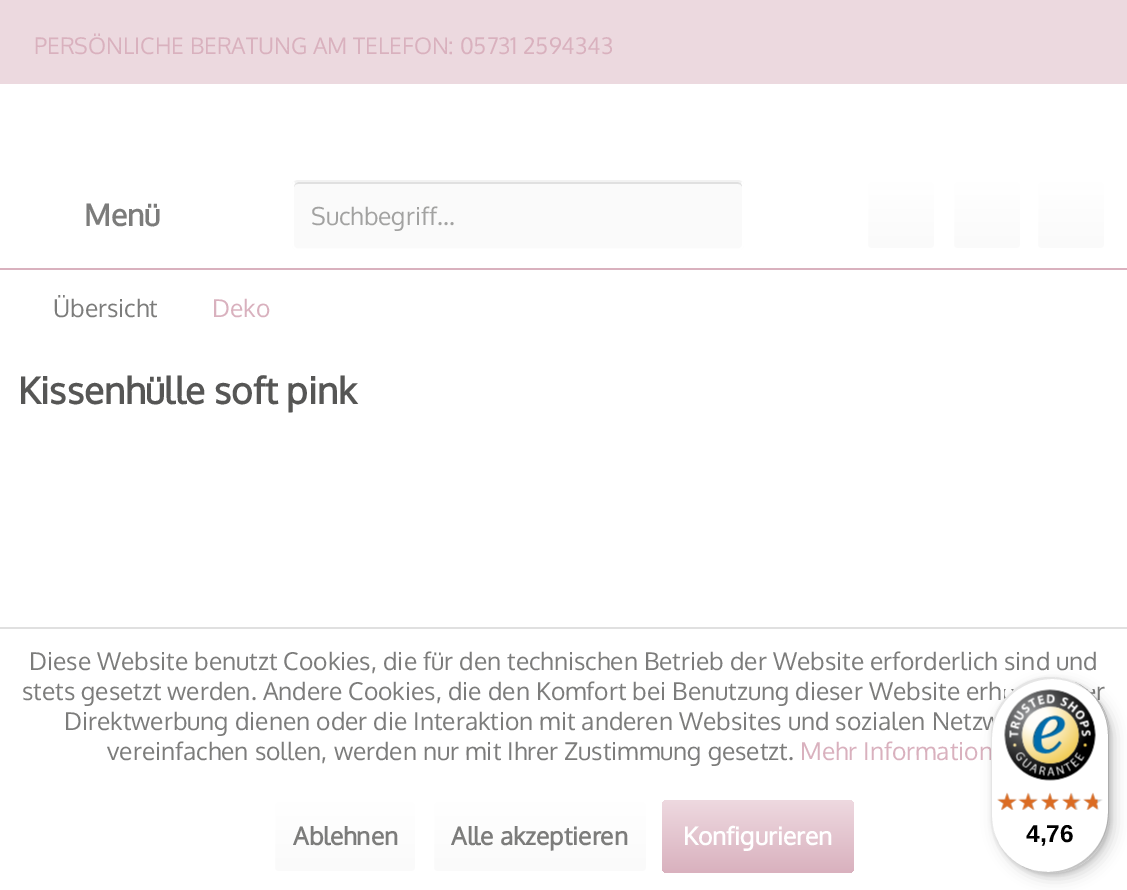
%!PS-Adobe-3.0
%%BoundingBox: 0 0 1127 890
%%LanguageLevel: 3
%%Pages: 1
%%EndComments
%%BeginProlog
/m { moveto } bind def
/l { lineto } bind def
/c { curveto } bind def
/h { closepath } bind def
/f { fill } bind def
/S { stroke } bind def
/q { gsave } bind def
/Q { grestore } bind def
/w { setlinewidth } bind def
/fn { [ exch dup neg 0 0 3 -1 roll 0 0 ] selectfont } def
/tx { moveto show } def
/bx { rectfill } def
/al { dup .setfillconstantalpha .setstrokeconstantalpha } def
/rr { 5 dict begin { /r /h /w /y /x } { exch def } forall
  x r add y moveto x w add y 2 copy h add r arct x w add y h add x 1 index r arct
  x y h add x y r arct x y 2 copy exch w add exch r arct closepath end } def
/sh { 12 dict begin { /a /b /q /h /w /y /x } { exch def } forall gsave /was 0 def
  9 -2 -9 { dup b mul 4 div /e exch def 1 sub .425 mul 2.718 exch exp 1 add a .99 .min exch div /now exch def
    1 1 now sub 1 was sub div sub al /was now def
    w h .min e 2 mul add 0 gt { x e sub y e sub w e 2 mul add h e 2 mul add
      q e add b .6 mul add w h .min 2 div e add .min 0 .max rr fill } if } for grestore end } def
/im { 5 dict begin { /h /w /y /x /name } { exch def } forall
  gsave x y translate w h scale
  w h 8 [w 0 0 h 0 0] name (r) file false 3 colorimage grestore end } def
%%EndProlog
%%BeginSetup
<< /PageSize [1127 890] /PageUsesTransparency true >> setpagedevice
%%EndSetup
%%Page: 1 1
0 .pushpdf14devicefilter
0 890 translate 1 -1 scale
4 setmiterlimit
1 setgray
0 0 1127 890 bx
0.851 0.694 0.745 setrgbcolor
0 268 1127 2 bx
0.925 0.851 0.875 setrgbcolor
0 0 1127 84 bx
/Oxygen-Regular 22.75 fn
0.851 0.694 0.745 setrgbcolor
(PERSÖNLICHE BERATUNG AM TELEFON: 05731 2594343) 34 54 tx
/Oxygen-Bold 30 fn
0.486 0.486 0.482 setrgbcolor
(Menü) 84 226 tx
0.98 setgray
292 180 452 70 5 rr f
0.878 setgray
298 184 m 738 184 l 740 184 742 185 742 187 c 742 184 741 182 738 182 c 298 182 l 296 183 l 295 184 l 294 187 l 294 185 296 184 298 184 c h f
0.949 setgray
1.8 w
294.5 182.5 m 297.5 181 l 738.5 181 l 741.5 182.5 l S
1 setgray
741.5 182.5 m 742.5 183 743 184.5 743 185.5 c 743 245 l 743 246 742.5 247.5 741.5 248 c 741 249 739.5 249.5 738.5 249.5 c 297.5 249.5 l 296.5 249.5 295 249 294.5 248 c 293.5 247.5 293 246 293 245 c 293 185.5 l 293 184.5 293.5 183 294.5 182.5 c S
/Oxygen-Regular 24.5 fn
0.635 0.635 0.631 setrgbcolor
(Suchbegriff...) 311 225 tx
q 868 182 67 67 4 rr clip newpath
<< /ShadingType 2 /ColorSpace /DeviceRGB /Coords [901 182 901 249] /Extend [true true] /Function << /FunctionType 2 /Domain [0 1] /C0 [1 1 1] /C1 [0.98 0.98 0.98] /N 1 >> >> shfill Q
1 setgray
2 w
867 181 68 68 4 rr S
q 954 182 66 67 4 rr clip newpath
<< /ShadingType 2 /ColorSpace /DeviceRGB /Coords [987 182 987 249] /Extend [true true] /Function << /FunctionType 2 /Domain [0 1] /C0 [1 1 1] /C1 [0.98 0.98 0.98] /N 1 >> >> shfill Q
953 181 68 68 4 rr S
q 1038 182 66 67 4 rr clip newpath
<< /ShadingType 2 /ColorSpace /DeviceRGB /Coords [1071 182 1071 249] /Extend [true true] /Function << /FunctionType 2 /Domain [0 1] /C0 [1 1 1] /C1 [0.98 0.98 0.98] /N 1 >> >> shfill Q
1037 181 68 68 4 rr S
0.486 0.486 0.482 setrgbcolor
(Übersicht) 53 317 tx
0.851 0.694 0.745 setrgbcolor
(Deko) 212 317 tx
/Oxygen-Bold 36.75 fn
0.337 0.337 0.333 setrgbcolor
(Kissenhülle soft pink) 18 404 tx
0.878 setgray
0 627 1127 2 bx
/Oxygen-Regular 24.5 fn
0.486 0.486 0.482 setrgbcolor
(Diese Website benutzt Cookies, die für den technischen Betrieb der Website erforderlich sind und) 29 670 tx
(stets gesetzt werden. Andere Cookies, die den Komfort bei Benutzung dieser Website erh) 22 700 tx
(r) 1096 700 tx
(Direktwerbung dienen oder die Interaktion mit anderen Websites und sozialen Netzw) 64 730 tx
(vereinfachen sollen, werden nur mit Ihrer Zustimmung gesetzt.) 107 760 tx
0.851 0.694 0.745 setrgbcolor
(Mehr Information) 800 760 tx
q 275 802 140 70 4 rr clip newpath
<< /ShadingType 2 /ColorSpace /DeviceRGB /Coords [345 802 345 872] /Extend [true true] /Function << /FunctionType 2 /Domain [0 1] /C0 [1 1 1] /C1 [0.98 0.98 0.98] /N 1 >> >> shfill Q
1 setgray
274 801 142 71 4 rr S
/Oxygen-Bold 24.5 fn
0.486 0.486 0.482 setrgbcolor
(Ablehnen) 293 845 tx
q 434 802 212 70 4 rr clip newpath
<< /ShadingType 2 /ColorSpace /DeviceRGB /Coords [540 802 540 872] /Extend [true true] /Function << /FunctionType 2 /Domain [0 1] /C0 [1 1 1] /C1 [0.98 0.98 0.98] /N 1 >> >> shfill Q
1 setgray
433 801 214 71 4 rr S
0.486 0.486 0.482 setrgbcolor
(Alle akzeptieren) 451 845 tx
q 662 800 192 73 5 rr clip newpath
<< /ShadingType 2 /ColorSpace /DeviceRGB /Coords [758 800 758 873] /Extend [true true] /Function << /FunctionType 2 /Domain [0 1] /C0 [0.933 0.851 0.878] /C1 [0.851 0.694 0.745] /N 1 >> >> shfill Q
1 setgray
(Konfigurieren) 683 845 tx
0 setgray
996 683 119 196 59.5 7 0.15 sh
992 679 119 196 59.5 2 0.15 sh
1 setgray
991 677 119 196 59.5 rr f
0.1 al
0 setgray
1052 679 m 1074 679 1092 691 1103 708 c 1092 689 1073 677 1050 677 c 1018 677 991 704 991 736 c 991 814 l 991 824 994 834 999 843 c 994 835 992 825 992 816 c 992 738 l 992 706 1019 679 1052 679 c h f
0.2 al
1026 868 m 1034 871 1042 873 1050 873 c 1083 873 1110 846 1110 814 c 1110 736 l 1110 712 1096 692 1075 682 c 1095 692 1108 712 1108 735 c 1108 812 l 1108 845 1081 872 1048 872 c 1040 872 1033 871 1026 868 c h f
0.196 setgray
1022 866 m 1031 870 1040 873 1050 873 c 1083 873 1110 846 1110 814 c 1110 736 l 1110 714 1098 695 1079 684 c 1097 695 1108 714 1108 736 c 1108 813 l 1108 846 1082 872 1049 872 c 1039 872 1030 870 1022 866 c h f
0.3 al
1 setgray
1020 864 m 1029 870 1039 873 1050 873 c 1083 873 1110 846 1110 814 c 1110 736 l 1110 716 1099 698 1083 687 c 1099 698 1109 716 1109 736 c 1109 813 l 1109 846 1082 872 1049 872 c 1038 872 1028 869 1020 864 c h f
1 al
(image0.raw) 1004 689 92 92 im
(image6.raw) 997 793 20 17 im
(image1.raw) 997 792 20 18 im
(image7.raw) 1020 793 18 17 im
(image2.raw) 1018 792 20 18 im
(image8.raw) 1041 793 18 17 im
(image3.raw) 1041 792 18 18 im
(image9.raw) 1063 793 18 17 im
(image4.raw) 1062 792 18 18 im
(image10.raw) 1083 793 20 17 im
(image5.raw) 1083 792 15 18 im
/LiberationSans-Bold 24.5 fn
0 setgray
(4,76) 1026 842 tx
.poppdf14devicefilter showpage
%%EOF
